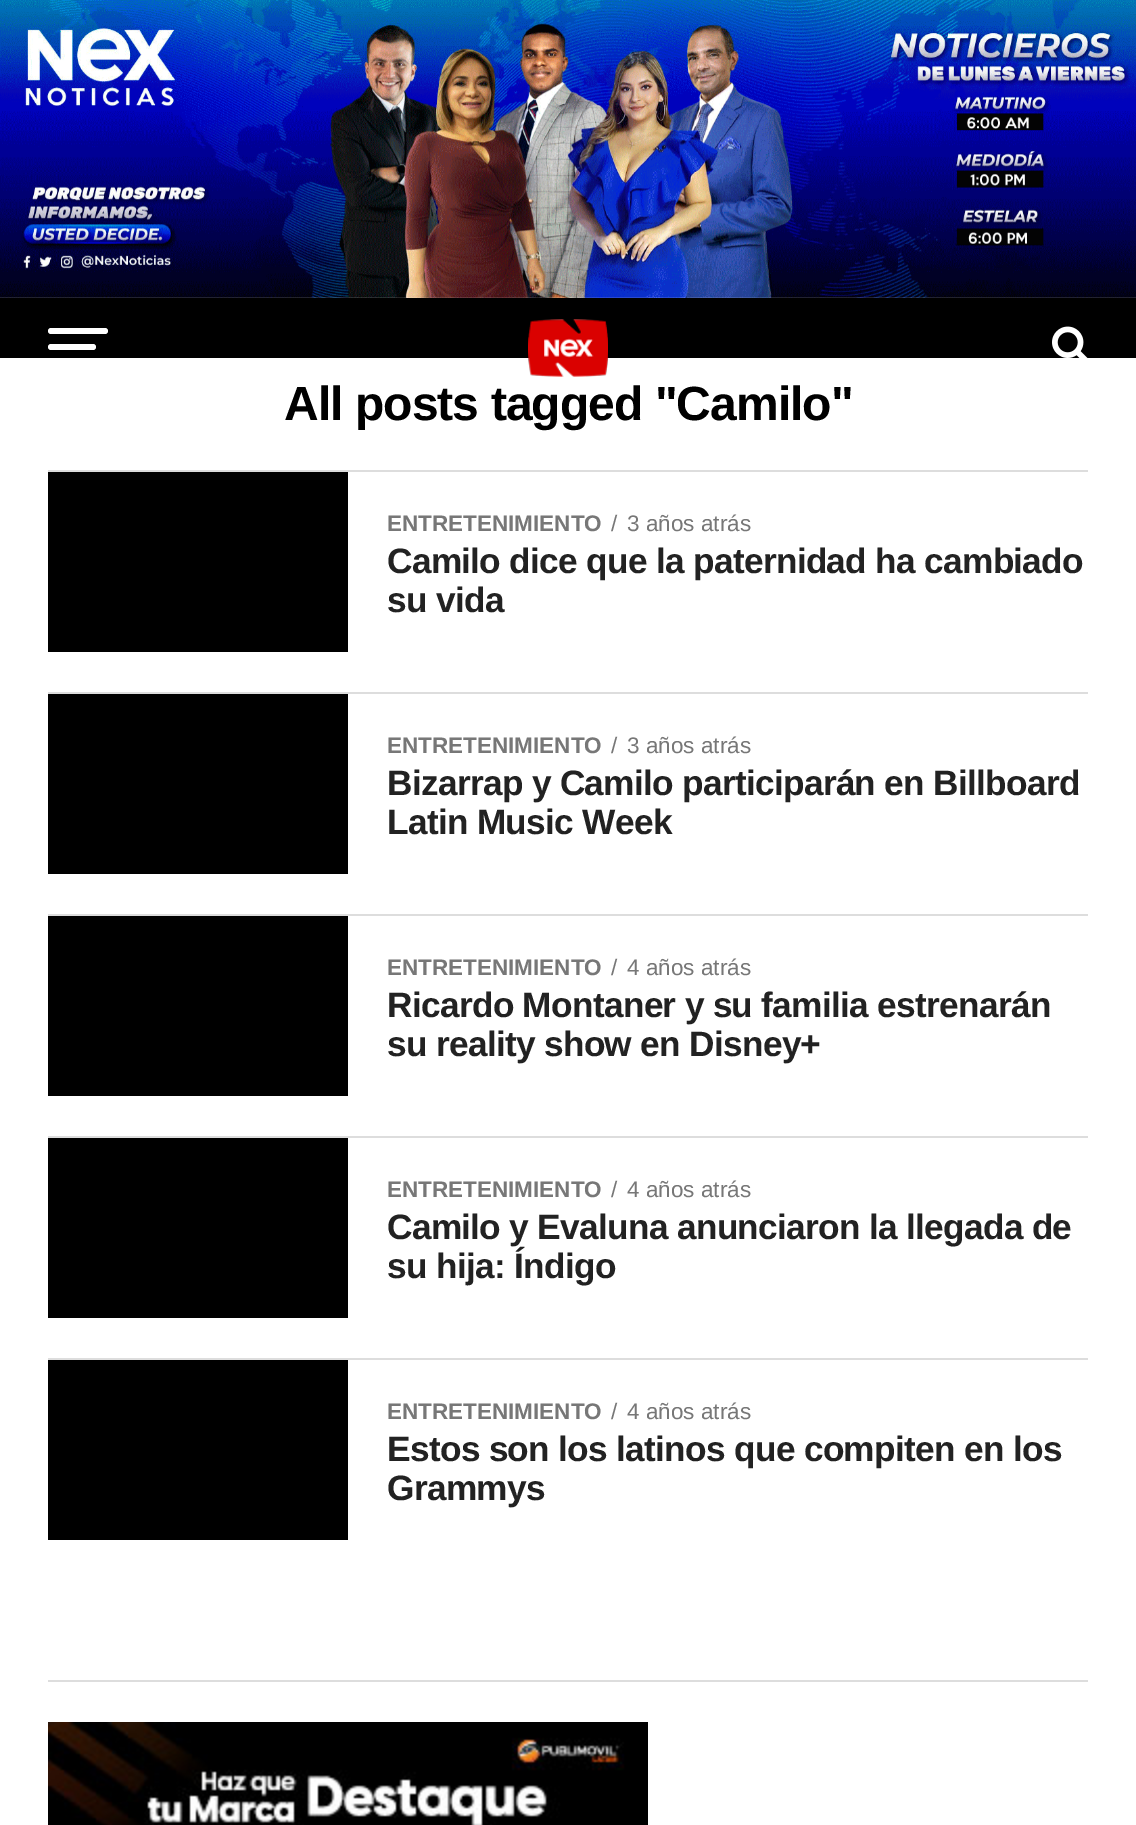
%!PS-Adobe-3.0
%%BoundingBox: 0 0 1136 1825
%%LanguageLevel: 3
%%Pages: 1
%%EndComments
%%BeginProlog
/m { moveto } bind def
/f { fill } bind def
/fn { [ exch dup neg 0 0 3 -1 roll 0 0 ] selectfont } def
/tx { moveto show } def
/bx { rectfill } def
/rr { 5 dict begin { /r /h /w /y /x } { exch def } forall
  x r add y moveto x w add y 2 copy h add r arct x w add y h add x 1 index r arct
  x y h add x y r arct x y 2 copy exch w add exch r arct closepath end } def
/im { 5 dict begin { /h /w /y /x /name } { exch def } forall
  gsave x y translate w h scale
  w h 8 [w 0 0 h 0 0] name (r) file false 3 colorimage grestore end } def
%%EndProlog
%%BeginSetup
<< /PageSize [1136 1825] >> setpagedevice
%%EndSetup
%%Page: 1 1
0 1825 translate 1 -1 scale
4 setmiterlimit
1 setgray
0 0 1136 1825 bx
(image0.raw) 0 0 1136 298 im
0 setgray
0 298 1136 60 bx
1 setgray
48 328 60 6 3 rr f
48 344 48 6 3 rr f
(image1.raw) 528 319 80 58 im
(image2.raw) 1052 326 36 32 im
/LiberationSans-Bold 48 fn
0 setgray
284 420 m -0.95 0 (All posts tagged "Camilo") ashow
0.867 setgray
48 470 1040 2 bx
0 setgray
48 472 300 180 bx
/LiberationSans-Bold 22.5 fn
0.467 setgray
(ENTRETENIMIENTO) 387 531 tx
/LiberationSans-Regular 22.5 fn
(/) 611 531 tx
(3 años atrás) 627 531 tx
/LiberationSans-Bold 35.25 fn
0.133 setgray
387 573 m -0.7 0 (Camilo dice que la paternidad ha cambiado) ashow
387 612 m -0.7 0 (su vida) ashow
0.867 setgray
48 692 1040 2 bx
0 setgray
48 694 300 180 bx
/LiberationSans-Bold 22.5 fn
0.467 setgray
(ENTRETENIMIENTO) 387 753 tx
/LiberationSans-Regular 22.5 fn
(/) 611 753 tx
(3 años atrás) 627 753 tx
/LiberationSans-Bold 35.25 fn
0.133 setgray
387 795 m -0.7 0 (Bizarrap y Camilo participarán en Billboard) ashow
387 834 m -0.7 0 (Latin Music Week) ashow
0.867 setgray
48 914 1040 2 bx
0 setgray
48 916 300 180 bx
/LiberationSans-Bold 22.5 fn
0.467 setgray
(ENTRETENIMIENTO) 387 975 tx
/LiberationSans-Regular 22.5 fn
(/) 611 975 tx
(4 años atrás) 627 975 tx
/LiberationSans-Bold 35.25 fn
0.133 setgray
387 1017 m -0.7 0 (Ricardo Montaner y su familia estrenarán) ashow
387 1056 m -0.7 0 (su reality show en Disney+) ashow
0.867 setgray
48 1136 1040 2 bx
0 setgray
48 1138 300 180 bx
/LiberationSans-Bold 22.5 fn
0.467 setgray
(ENTRETENIMIENTO) 387 1197 tx
/LiberationSans-Regular 22.5 fn
(/) 611 1197 tx
(4 años atrás) 627 1197 tx
/LiberationSans-Bold 35.25 fn
0.133 setgray
387 1239 m -0.7 0 (Camilo y Evaluna anunciaron la llegada de) ashow
387 1278 m -0.7 0 (su hija: Índigo) ashow
0.867 setgray
48 1358 1040 2 bx
0 setgray
48 1360 300 180 bx
/LiberationSans-Bold 22.5 fn
0.467 setgray
(ENTRETENIMIENTO) 387 1419 tx
/LiberationSans-Regular 22.5 fn
(/) 611 1419 tx
(4 años atrás) 627 1419 tx
/LiberationSans-Bold 35.25 fn
0.133 setgray
387 1461 m -0.7 0 (Estos son los latinos que compiten en los) ashow
387 1500 m -0.7 0 (Grammys) ashow
0.867 setgray
48 1680 1040 2 bx
(image3.raw) 48 1722 600 103 im
showpage
%%EOF
